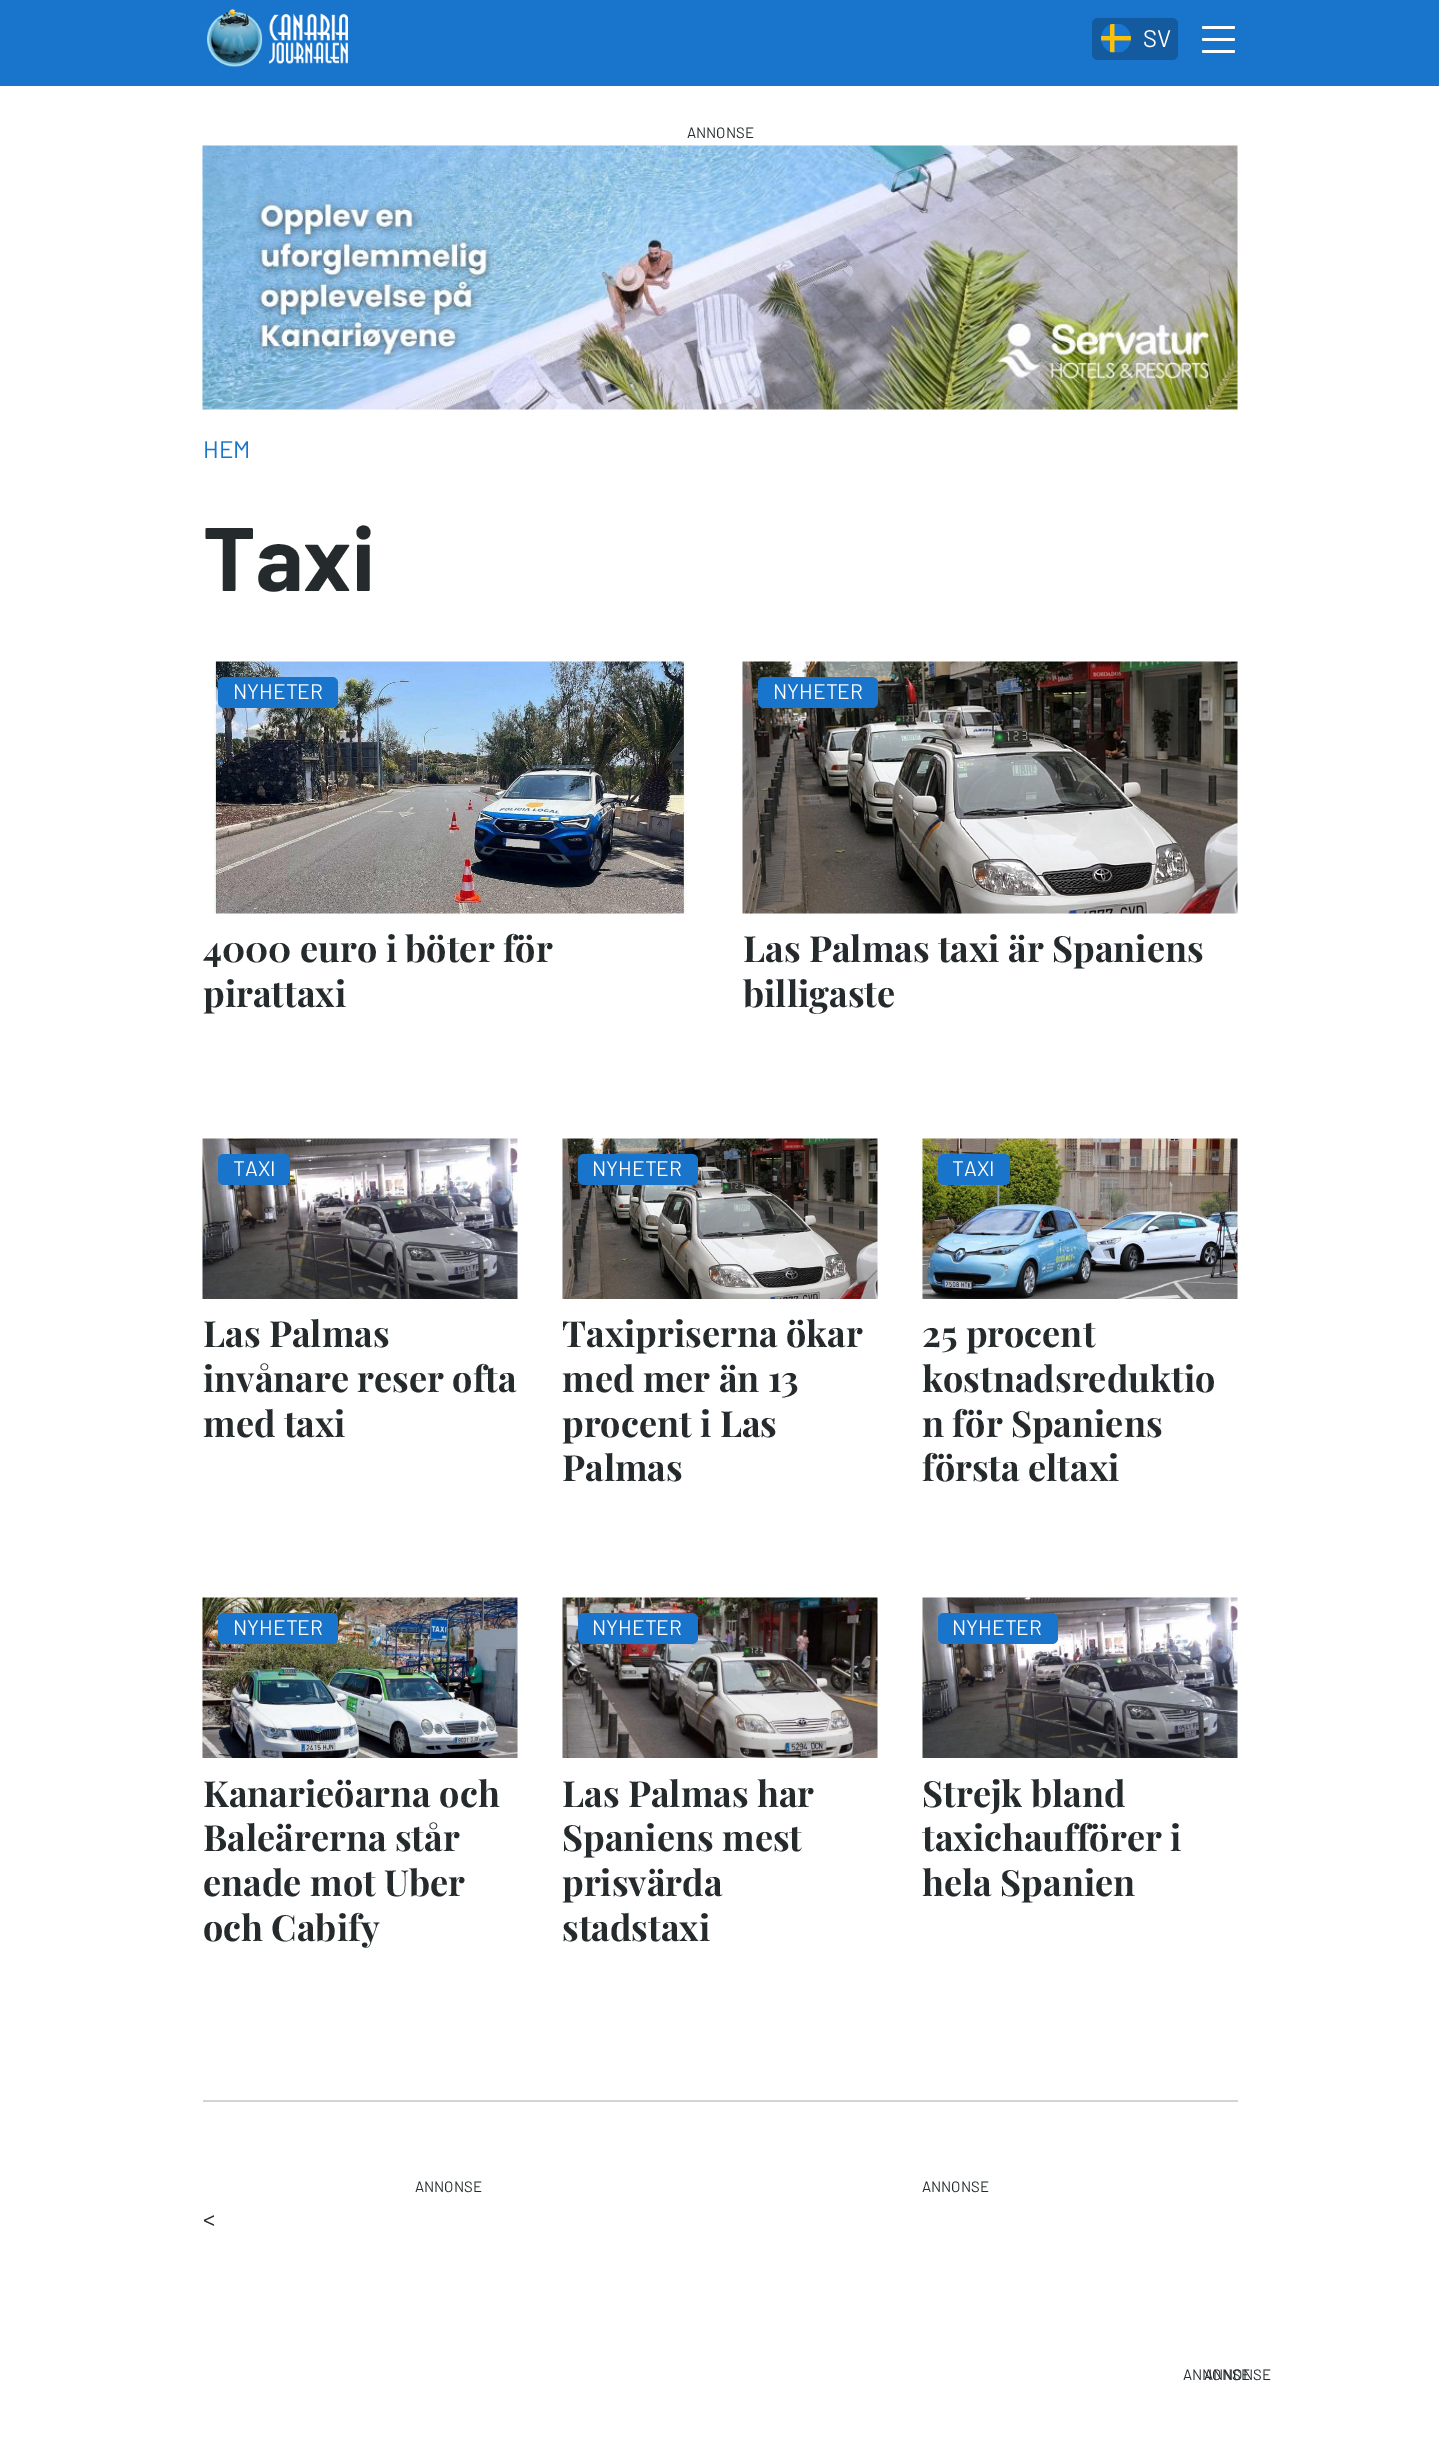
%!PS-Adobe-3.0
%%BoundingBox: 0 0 1439 2461
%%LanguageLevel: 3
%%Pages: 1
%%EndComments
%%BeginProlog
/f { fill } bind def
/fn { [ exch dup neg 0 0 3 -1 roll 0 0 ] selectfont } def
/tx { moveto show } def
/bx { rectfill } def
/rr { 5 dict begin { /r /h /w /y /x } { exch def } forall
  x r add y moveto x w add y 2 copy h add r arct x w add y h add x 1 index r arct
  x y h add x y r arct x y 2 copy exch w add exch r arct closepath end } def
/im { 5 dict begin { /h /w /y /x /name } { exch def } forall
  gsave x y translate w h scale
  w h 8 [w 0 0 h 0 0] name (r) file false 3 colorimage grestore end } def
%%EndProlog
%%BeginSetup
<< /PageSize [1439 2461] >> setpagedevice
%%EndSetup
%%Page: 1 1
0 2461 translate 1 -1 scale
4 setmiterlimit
1 setgray
0 0 1439 2461 bx
0.098 0.455 0.8 setrgbcolor
0 0 1439 86 bx
(image0.raw) 207 9 141 58 im
0.078 0.353 0.62 setrgbcolor
1092 18 86 42 6 rr f
(image1.raw) 1101 24 30 29 im
/Barlow-Regular 24 fn
1 setgray
(SV) 1143 47 tx
1202 26 33 3 1.5 rr f
1202 38 33 3 1.5 rr f
1202 50 33 3 1.5 rr f
/Barlow-Regular 15 fn
0.145 0.169 0.176 setrgbcolor
(ANNONSE) 687 138 tx
(image2.raw) 202 145 1036 265 im
/Barlow-Regular 24 fn
0.098 0.455 0.8 setrgbcolor
(HEM) 203 458 tx
/Barlow-Bold 90 fn
0.145 0.169 0.176 setrgbcolor
(Taxi) 203 591 tx
0.824 0.827 0.831 setrgbcolor
203 2100 1035 2 bx
(image3.raw) 211 661 476 253 im
0.098 0.455 0.8 setrgbcolor
218 677 120 31 6 rr f
/Barlow-Regular 21 fn
1 setgray
(NYHETER) 233 699 tx
/PlayfairDisplay-Bold 36 fn
0.145 0.169 0.176 setrgbcolor
(4000 euro i böter för) 203 962 tx
(pirattaxi) 203 1007 tx
(image4.raw) 742 661 496 253 im
0.098 0.455 0.8 setrgbcolor
758 677 120 31 6 rr f
/Barlow-Regular 21 fn
1 setgray
(NYHETER) 773 699 tx
/PlayfairDisplay-Bold 36 fn
0.145 0.169 0.176 setrgbcolor
(Las Palmas taxi är Spaniens) 743 962 tx
(billigaste) 743 1007 tx
(image5.raw) 202 1138 316 161 im
0.098 0.455 0.8 setrgbcolor
218 1154 72 31 6 rr f
/Barlow-Regular 21 fn
1 setgray
(TAXI) 233 1176 tx
/PlayfairDisplay-Bold 36 fn
0.145 0.169 0.176 setrgbcolor
(Las Palmas) 203 1347 tx
(invånare reser ofta) 203 1392 tx
(med taxi) 203 1437 tx
(image6.raw) 562 1138 316 161 im
0.098 0.455 0.8 setrgbcolor
578 1154 120 31 6 rr f
/Barlow-Regular 21 fn
1 setgray
(NYHETER) 592 1176 tx
/PlayfairDisplay-Bold 36 fn
0.145 0.169 0.176 setrgbcolor
(Taxipriserna ökar) 562 1347 tx
(med mer än 13) 562 1392 tx
(procent i Las) 562 1437 tx
(Palmas) 562 1481 tx
(image7.raw) 922 1138 316 161 im
0.098 0.455 0.8 setrgbcolor
938 1154 72 31 6 rr f
/Barlow-Regular 21 fn
1 setgray
(TAXI) 952 1176 tx
/PlayfairDisplay-Bold 36 fn
0.145 0.169 0.176 setrgbcolor
(25 procent) 922 1347 tx
(kostnadsreduktio) 922 1392 tx
(n för Spaniens) 922 1437 tx
(första eltaxi) 922 1481 tx
(image8.raw) 202 1597 316 161 im
0.098 0.455 0.8 setrgbcolor
218 1613 120 31 6 rr f
/Barlow-Regular 21 fn
1 setgray
(NYHETER) 233 1635 tx
/PlayfairDisplay-Bold 36 fn
0.145 0.169 0.176 setrgbcolor
(Kanarieöarna och) 203 1807 tx
(Baleärerna står) 203 1851 tx
(enade mot Uber) 203 1896 tx
(och Cabify) 203 1941 tx
(image9.raw) 562 1597 316 161 im
0.098 0.455 0.8 setrgbcolor
578 1613 120 31 6 rr f
/Barlow-Regular 21 fn
1 setgray
(NYHETER) 592 1635 tx
/PlayfairDisplay-Bold 36 fn
0.145 0.169 0.176 setrgbcolor
(Las Palmas har) 562 1807 tx
(Spaniens mest) 562 1851 tx
(prisvärda) 562 1896 tx
(stadstaxi) 562 1941 tx
(image10.raw) 922 1597 316 161 im
0.098 0.455 0.8 setrgbcolor
938 1613 120 31 6 rr f
/Barlow-Regular 21 fn
1 setgray
(NYHETER) 952 1635 tx
/PlayfairDisplay-Bold 36 fn
0.145 0.169 0.176 setrgbcolor
(Strejk bland) 922 1807 tx
(taxichaufförer i) 922 1851 tx
(hela Spanien) 922 1896 tx
/Barlow-Regular 15 fn
(ANNONSE) 415 2192 tx
/Barlow-Regular 24 fn
(<) 203 2227 tx
/Barlow-Regular 15 fn
(ANNONSE) 922 2192 tx
(ANNONSE) 1183 2380 tx
(ANNONSE) 1204 2380 tx
showpage
%%EOF
